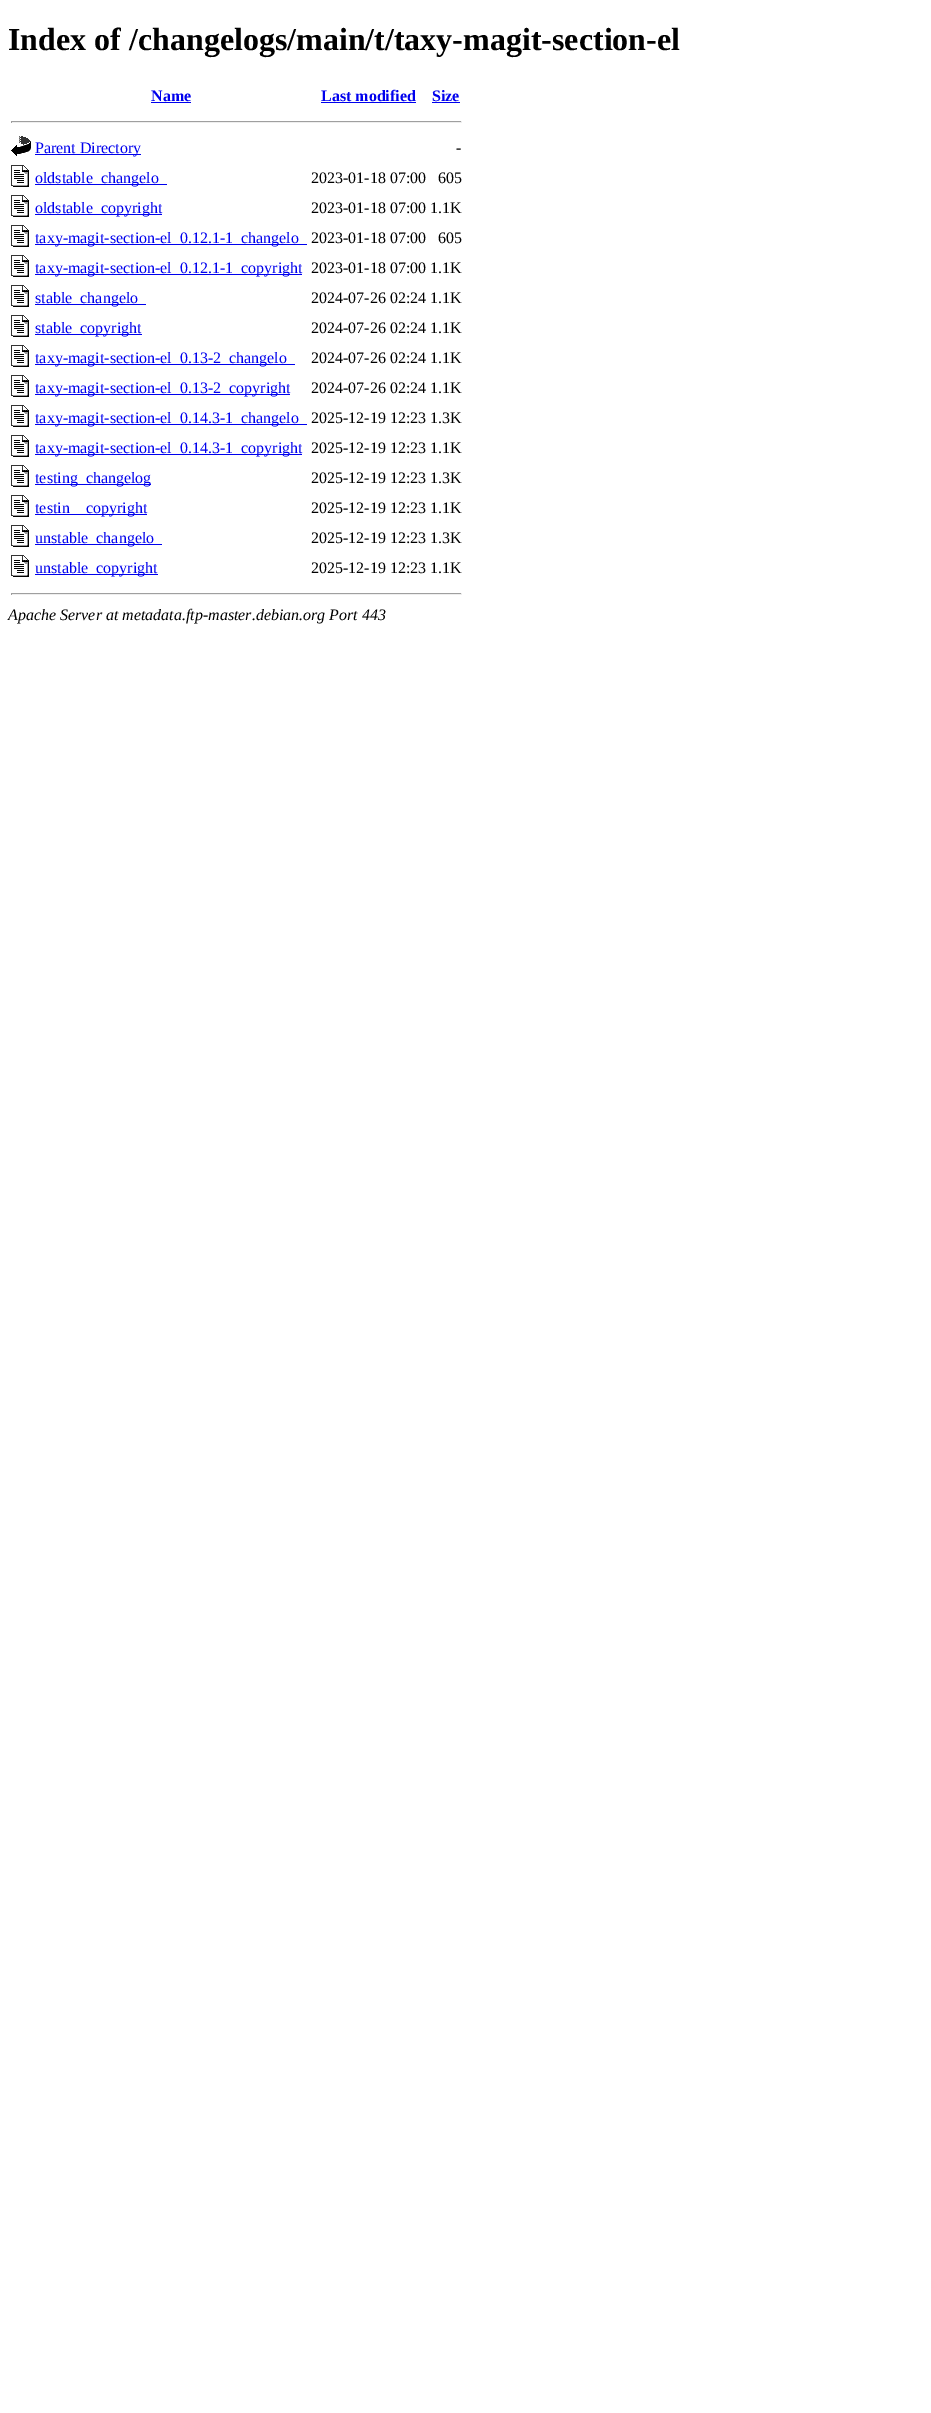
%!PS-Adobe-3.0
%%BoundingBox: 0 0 931 2413
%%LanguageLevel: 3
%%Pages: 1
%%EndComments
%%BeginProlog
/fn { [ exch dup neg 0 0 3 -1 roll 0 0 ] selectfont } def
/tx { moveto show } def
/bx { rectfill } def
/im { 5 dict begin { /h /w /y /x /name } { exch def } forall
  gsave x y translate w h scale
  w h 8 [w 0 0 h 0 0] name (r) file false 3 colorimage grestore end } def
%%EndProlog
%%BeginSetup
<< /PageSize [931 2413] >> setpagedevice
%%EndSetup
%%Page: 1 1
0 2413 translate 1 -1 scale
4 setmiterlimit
1 setgray
0 0 931 2413 bx
/LiberationSerif-Bold 32 fn
0 setgray
(Index of /changelogs/main/t/taxy-magit-section-el) 8 50 tx
/LiberationSerif-Bold 16 fn
0 0 0.933 setrgbcolor
(Name) 151 101 tx
151 102 40 1 bx
(Last modified) 321 101 tx
321 102 95 1 bx
(Size) 432 101 tx
432 102 28 1 bx
0.624 setgray
11 121 451 1 bx
0.933 setgray
461 121 1 2 bx
11 122 451 1 bx
0.624 setgray
11 121 1 2 bx
(image0.raw) 11 136 20 20 im
0 0 0.933 setrgbcolor
35 154 106 1 bx
/LiberationSerif-Regular 16 fn
(Parent Directory) 35 153 tx
0 setgray
(-) 456 153 tx
(image1.raw) 11 165 18 22 im
0 0 0.933 setrgbcolor
35 184 132 1 bx
(oldstable_changelo) 35 183 tx
0 setgray
(2023-01-18 07:00) 311 183 tx
(605) 438 183 tx
(image1.raw) 11 195 18 22 im
0 0 0.933 setrgbcolor
35 214 127 1 bx
(oldstable_copyright) 35 213 tx
0 setgray
(2023-01-18 07:00 1.1K) 311 213 tx
(image1.raw) 11 225 18 22 im
0 0 0.933 setrgbcolor
35 244 272 1 bx
(taxy-magit-section-el_0.12.1-1_changelo) 35 243 tx
0 setgray
(2023-01-18 07:00) 311 243 tx
(605) 438 243 tx
(image1.raw) 11 255 18 22 im
0 0 0.933 setrgbcolor
35 274 267 1 bx
(taxy-magit-section-el_0.12.1-1_copyright) 35 273 tx
0 setgray
(2023-01-18 07:00 1.1K) 311 273 tx
(image1.raw) 11 285 18 22 im
0 0 0.933 setrgbcolor
35 304 111 1 bx
(stable_changelo) 35 303 tx
0 setgray
(2024-07-26 02:24 1.1K) 311 303 tx
(image1.raw) 11 315 18 22 im
0 0 0.933 setrgbcolor
35 334 107 1 bx
(stable_copyright) 35 333 tx
0 setgray
(2024-07-26 02:24 1.1K) 311 333 tx
(image1.raw) 11 345 18 22 im
0 0 0.933 setrgbcolor
35 364 260 1 bx
(taxy-magit-section-el_0.13-2_changelo) 35 363 tx
0 setgray
(2024-07-26 02:24 1.1K) 311 363 tx
(image1.raw) 11 375 18 22 im
0 0 0.933 setrgbcolor
35 394 255 1 bx
(taxy-magit-section-el_0.13-2_copyright) 35 393 tx
0 setgray
(2024-07-26 02:24 1.1K) 311 393 tx
(image1.raw) 11 405 18 22 im
0 0 0.933 setrgbcolor
35 424 272 1 bx
(taxy-magit-section-el_0.14.3-1_changelo) 35 423 tx
0 setgray
(2025-12-19 12:23 1.3K) 311 423 tx
(image1.raw) 11 435 18 22 im
0 0 0.933 setrgbcolor
35 454 267 1 bx
(taxy-magit-section-el_0.14.3-1_copyright) 35 453 tx
0 setgray
(2025-12-19 12:23 1.1K) 311 453 tx
(image1.raw) 11 465 18 22 im
0 0 0.933 setrgbcolor
35 484 116 1 bx
(testing_changelog) 35 483 tx
0 setgray
(2025-12-19 12:23 1.3K) 311 483 tx
(image1.raw) 11 495 18 22 im
0 0 0.933 setrgbcolor
(testin) 35 513 tx
35 514 112 1 bx
(copyright) 86 513 tx
0 setgray
(2025-12-19 12:23 1.1K) 311 513 tx
(image1.raw) 11 525 18 22 im
0 0 0.933 setrgbcolor
35 544 127 1 bx
(unstable_changelo) 35 543 tx
0 setgray
(2025-12-19 12:23 1.3K) 311 543 tx
(image1.raw) 11 555 18 22 im
0 0 0.933 setrgbcolor
35 574 123 1 bx
(unstable_copyright) 35 573 tx
0 setgray
(2025-12-19 12:23 1.1K) 311 573 tx
0.624 setgray
11 593 451 1 bx
0.933 setgray
461 593 1 2 bx
11 594 451 1 bx
0.624 setgray
11 593 1 2 bx
/LiberationSerif-Italic 16 fn
0 setgray
(Apache Server at metadata.ftp-master.debian.org Port 443) 8 620 tx
showpage
%%EOF
